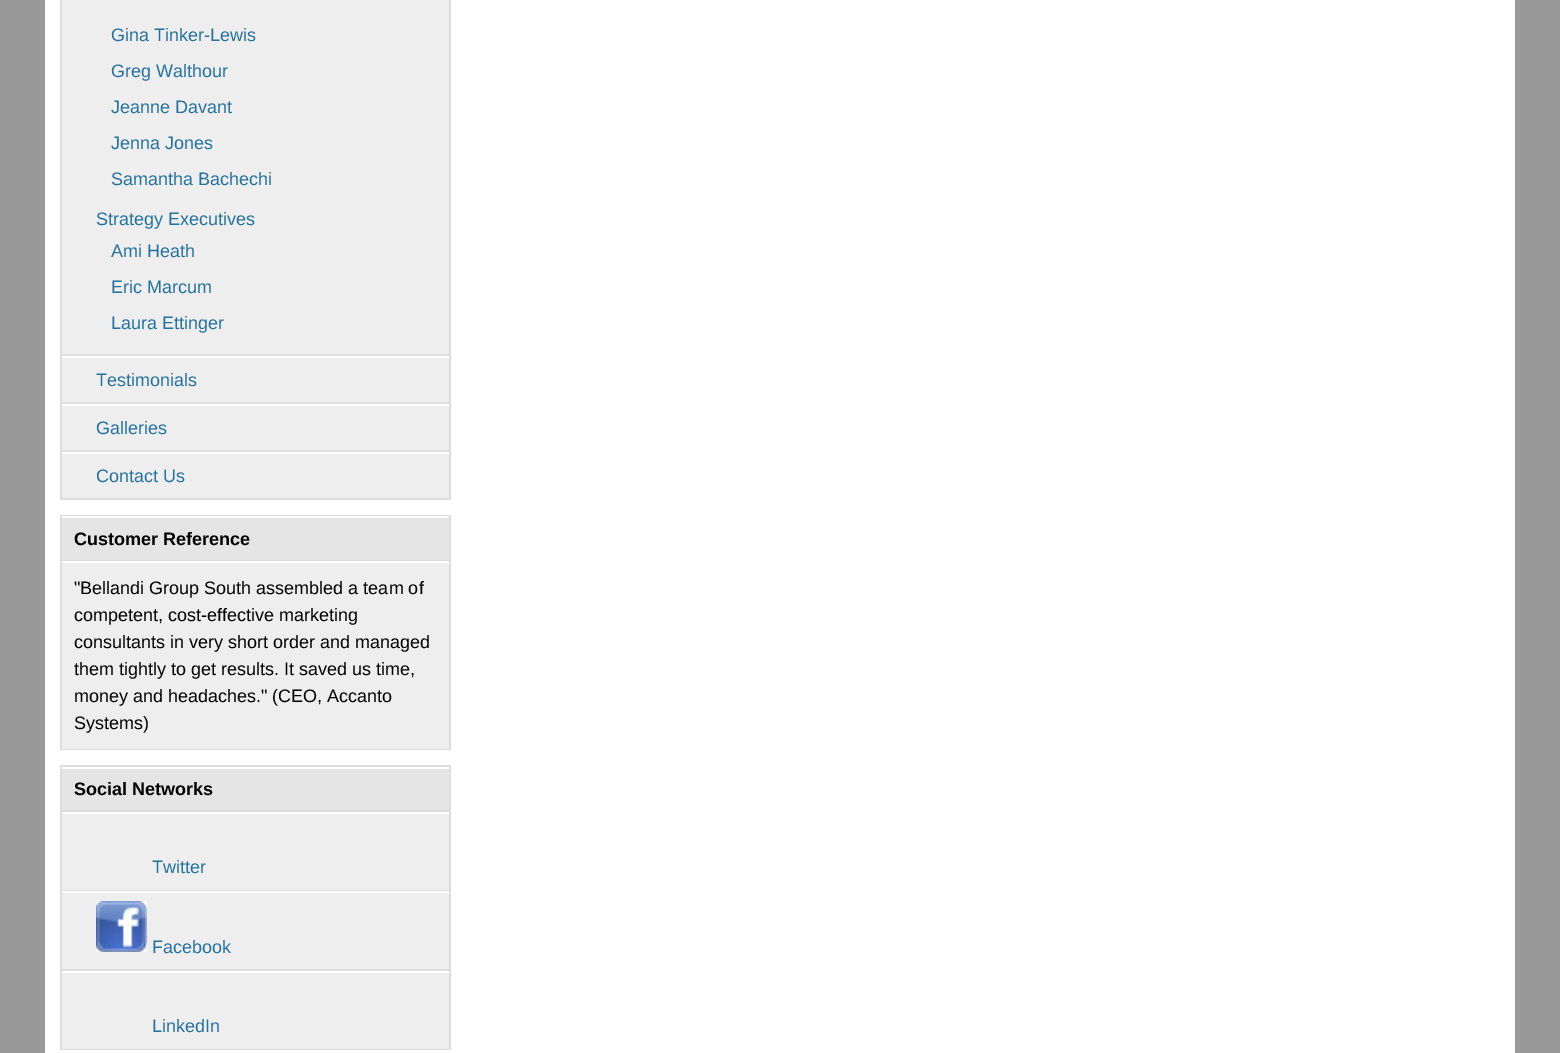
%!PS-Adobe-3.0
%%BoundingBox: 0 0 1560 1053
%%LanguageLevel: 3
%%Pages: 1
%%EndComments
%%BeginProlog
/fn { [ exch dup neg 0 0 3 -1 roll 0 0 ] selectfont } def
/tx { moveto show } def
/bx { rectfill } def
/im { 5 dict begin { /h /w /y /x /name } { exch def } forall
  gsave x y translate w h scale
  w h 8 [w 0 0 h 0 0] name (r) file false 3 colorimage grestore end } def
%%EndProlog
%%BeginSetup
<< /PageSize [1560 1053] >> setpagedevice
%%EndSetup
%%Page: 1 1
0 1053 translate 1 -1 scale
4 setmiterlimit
0.6 setgray
0 0 1560 1053 bx
1 setgray
45 0 1470 1053 bx
0.933 setgray
62 0 387 498 bx
0.867 setgray
449 0 2 500 bx
60 0 2 500 bx
62 354 387 2 bx
/LiberationSans-Regular 18 fn
0.141 0.447 0.624 setrgbcolor
(Gina Tinker-Lewis) 111 41 tx
(Greg Walthour) 111 77 tx
(Jeanne Davant) 111 113 tx
(Jenna Jones) 111 149 tx
(Samantha Bachechi) 111 185 tx
(Strategy Executives) 96 225 tx
(Ami Heath) 111 257 tx
(Eric Marcum) 111 293 tx
(Laura Ettinger) 111 329 tx
1 setgray
62 356 387 2 bx
0.867 setgray
62 402 387 2 bx
0.141 0.447 0.624 setrgbcolor
(Testimonials) 96 386 tx
1 setgray
62 404 387 2 bx
0.867 setgray
62 450 387 2 bx
0.141 0.447 0.624 setrgbcolor
(Galleries) 96 434 tx
1 setgray
62 452 387 2 bx
0.867 setgray
62 498 387 2 bx
0.141 0.447 0.624 setrgbcolor
(Contact Us) 96 482 tx
0.933 setgray
62 563 387 186 bx
0.867 setgray
60 515 390 1 bx
449 515 2 235 bx
60 515 2 235 bx
0.898 setgray
62 518 387 42 bx
0.867 setgray
62 560 387 1 bx
/LiberationSans-Bold 18 fn
0 setgray
(Customer Reference) 74 545 tx
0.867 setgray
62 749 387 1 bx
/LiberationSans-Regular 18 fn
0 setgray
("Bellandi Group South assembled a team of) 74 594 tx
(competent, cost-effective marketing) 74 621 tx
(consultants in very short order and managed) 74 648 tx
(them tightly to get results. It saved us time,) 74 675 tx
(money and headaches." \(CEO, Accanto) 74 702 tx
(Systems\)) 74 729 tx
0.933 setgray
62 814 387 235 bx
0.867 setgray
60 765 390 2 bx
449 765 2 285 bx
60 765 2 285 bx
0.898 setgray
62 769 387 41 bx
0.867 setgray
62 810 387 2 bx
/LiberationSans-Bold 18 fn
0 setgray
(Social Networks) 74 795 tx
0.867 setgray
62 890 387 1 bx
/LiberationSans-Regular 18 fn
0.141 0.447 0.624 setrgbcolor
(Twitter) 152 873 tx
1 setgray
62 891 387 2 bx
0.867 setgray
62 969 387 2 bx
(image0.raw) 96 901 51 51 im
0.141 0.447 0.624 setrgbcolor
(Facebook) 152 953 tx
1 setgray
62 971 387 2 bx
0.867 setgray
62 1049 387 1 bx
0.141 0.447 0.624 setrgbcolor
(LinkedIn) 152 1032 tx
showpage
%%EOF
